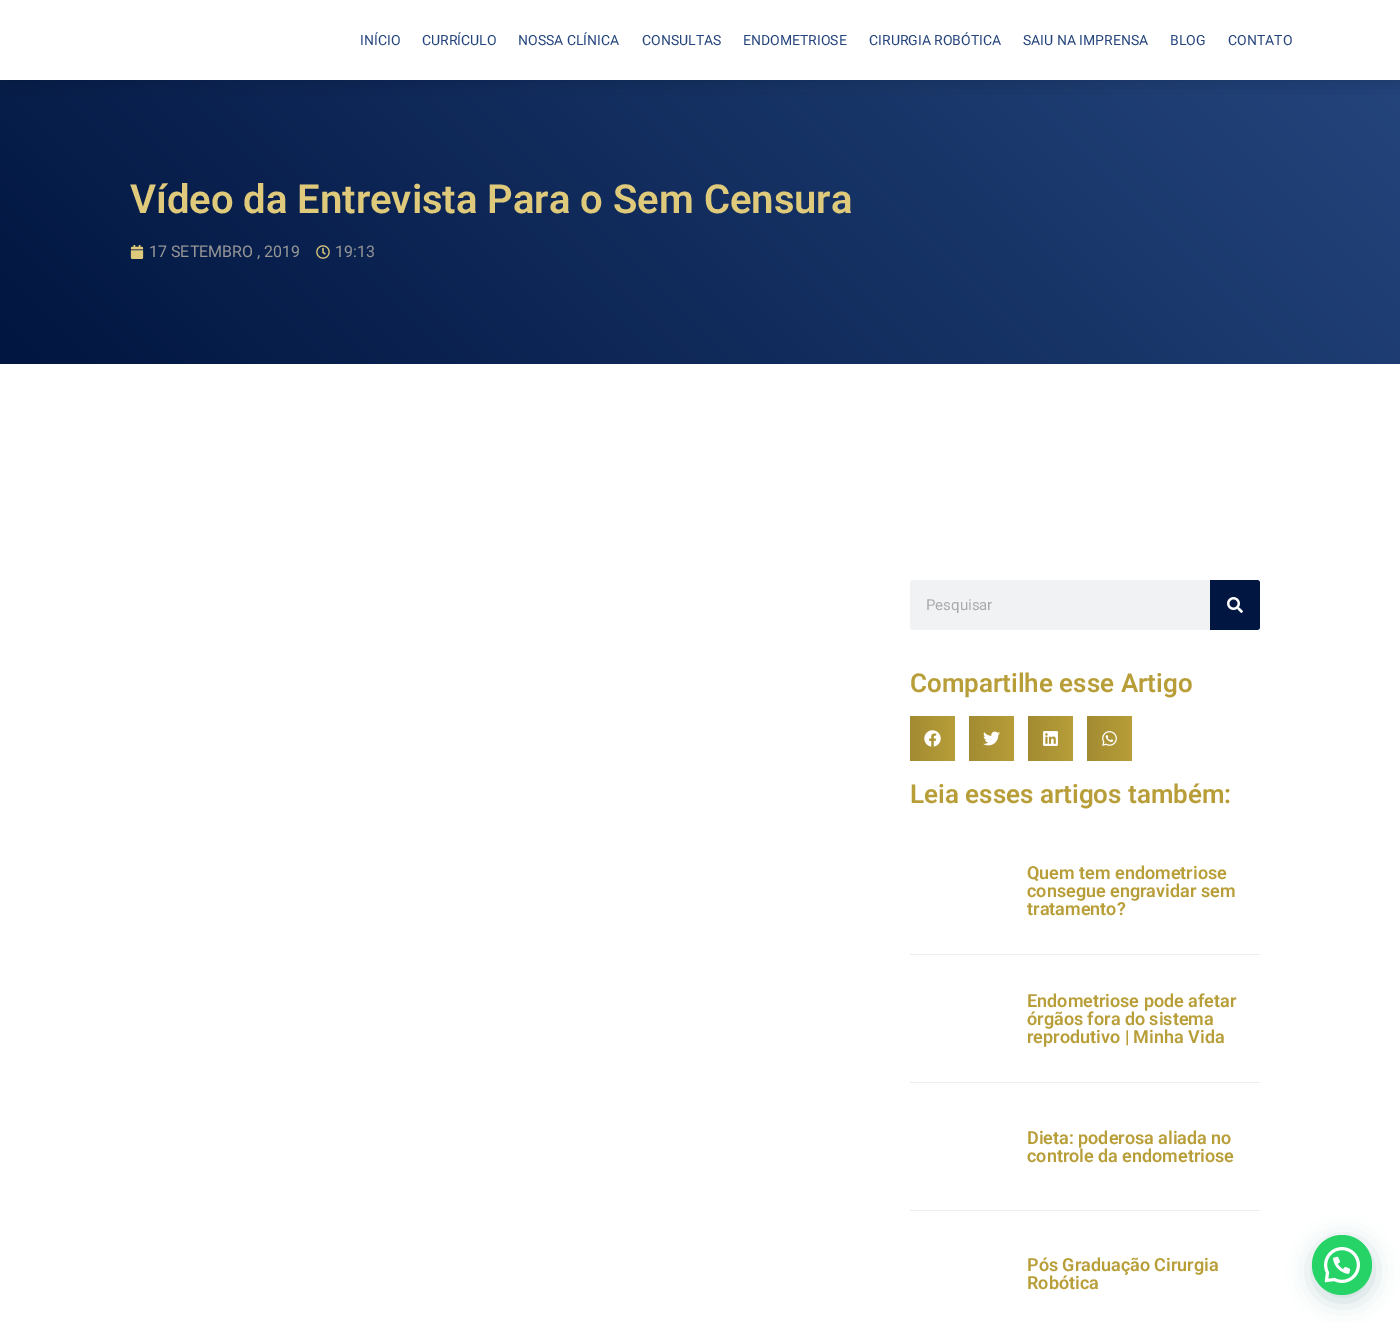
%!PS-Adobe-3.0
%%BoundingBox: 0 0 1400 1323
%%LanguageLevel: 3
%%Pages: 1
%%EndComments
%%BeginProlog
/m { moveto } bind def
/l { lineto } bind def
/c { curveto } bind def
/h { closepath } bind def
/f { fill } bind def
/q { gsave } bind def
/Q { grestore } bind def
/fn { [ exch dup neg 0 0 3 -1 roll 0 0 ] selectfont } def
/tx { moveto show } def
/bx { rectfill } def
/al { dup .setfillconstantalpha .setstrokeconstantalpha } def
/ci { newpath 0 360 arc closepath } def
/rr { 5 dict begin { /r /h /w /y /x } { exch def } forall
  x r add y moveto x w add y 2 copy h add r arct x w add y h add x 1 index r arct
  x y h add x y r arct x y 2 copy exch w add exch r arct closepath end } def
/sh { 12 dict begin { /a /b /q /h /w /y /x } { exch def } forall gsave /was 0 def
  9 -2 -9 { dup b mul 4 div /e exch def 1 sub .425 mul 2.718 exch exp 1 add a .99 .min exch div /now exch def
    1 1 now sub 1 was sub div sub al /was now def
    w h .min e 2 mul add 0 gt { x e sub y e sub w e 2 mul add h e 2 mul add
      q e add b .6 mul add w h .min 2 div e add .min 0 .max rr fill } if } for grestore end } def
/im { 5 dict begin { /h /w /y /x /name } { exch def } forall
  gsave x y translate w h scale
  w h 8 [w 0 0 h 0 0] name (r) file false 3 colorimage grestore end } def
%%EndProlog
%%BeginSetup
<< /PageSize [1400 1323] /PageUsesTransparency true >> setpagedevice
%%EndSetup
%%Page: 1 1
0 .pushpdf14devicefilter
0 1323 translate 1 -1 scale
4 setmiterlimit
1 setgray
0 0 1400 1323 bx
q 0 80 m 1400 80 l 1400 364 l 0 364 l h clip newpath
<< /ShadingType 2 /ColorSpace /DeviceRGB /Coords [279 643 1121 -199] /Extend [true true] /Function << /FunctionType 2 /Domain [0 1] /C0 [0.004 0.086 0.251] /C1 [0.141 0.267 0.486] /N 1 >> >> shfill Q
q
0 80 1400 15 rectclip
0 setgray
0 0 1400 80 0 12 0.18 sh
Q
/Roboto-Regular 14 fn
0.141 0.267 0.486 setrgbcolor
(INÍCIO) 360 45 tx
(CURRÍCULO) 422 45 tx
(NOSSA CLÍNICA) 518 45 tx
(CONSULTAS) 642 45 tx
(ENDOMETRIOSE) 743 45 tx
(CIRURGIA ROBÓTICA) 869 45 tx
(SAIU NA IMPRENSA) 1023 45 tx
(BLOG) 1170 45 tx
(CONTATO) 1228 45 tx
/Roboto-SemiBold 40 fn
0.871 0.792 0.478 setrgbcolor
(Vídeo da Entrevista Para o Sem Censura) 130 213 tx
(image0.raw) 130 245 14 14 im
/Roboto-Regular 16 fn
0.592 setgray
(17 SETEMBRO , 2019) 149 257 tx
(image1.raw) 316 245 14 14 im
(19:13) 335 257 tx
0.945 0.949 0.953 setrgbcolor
910 580 350 50 3 rr f
/Roboto-Regular 15 fn
0.667 setgray
(Pesquisar) 926 610 tx
0.004 0.086 0.251 setrgbcolor
1210 580 m 1257 580 l 1258.5 580 1260 581.5 1260 583 c 1260 627 l 1260 628.5 1258.5 630 1257 630 c 1210 630 l h f
(image2.raw) 1227 597 16 16 im
/Roboto-SemiBold 26 fn
0.722 0.62 0.224 setrgbcolor
(Compartilhe esse Artigo) 910 692 tx
q 910 716 m 955 716 l 955 761 l 910 761 l h clip newpath
<< /ShadingType 2 /ColorSpace /DeviceRGB /Coords [910 739 955 739] /Extend [true true] /Function << /FunctionType 2 /Domain [0 1] /C0 [0.635 0.545 0.196] /C1 [0.722 0.62 0.224] /N 1 >> >> shfill Q
(image3.raw) 924 730 17 17 im
q 969 716 m 1014 716 l 1014 761 l 969 761 l h clip newpath
<< /ShadingType 2 /ColorSpace /DeviceRGB /Coords [969 739 1014 739] /Extend [true true] /Function << /FunctionType 2 /Domain [0 1] /C0 [0.635 0.545 0.196] /C1 [0.722 0.62 0.224] /N 1 >> >> shfill Q
(image4.raw) 983 731 17 15 im
q 1028 716 m 1073 716 l 1073 761 l 1028 761 l h clip newpath
<< /ShadingType 2 /ColorSpace /DeviceRGB /Coords [1028 739 1073 739] /Extend [true true] /Function << /FunctionType 2 /Domain [0 1] /C0 [0.635 0.545 0.196] /C1 [0.722 0.62 0.224] /N 1 >> >> shfill Q
(image5.raw) 1043 731 15 15 im
q 1087 716 m 1132 716 l 1132 761 l 1087 761 l h clip newpath
<< /ShadingType 2 /ColorSpace /DeviceRGB /Coords [1087 739 1132 739] /Extend [true true] /Function << /FunctionType 2 /Domain [0 1] /C0 [0.635 0.545 0.196] /C1 [0.722 0.62 0.224] /N 1 >> >> shfill Q
(image6.raw) 1102 731 15 15 im
(Leia esses artigos também:) 910 803 tx
0.925 setgray
910 954 350 1 bx
/Roboto-SemiBold 18 fn
0.722 0.62 0.224 setrgbcolor
(Quem tem endometriose) 1027 879 tx
(consegue engravidar sem) 1027 897 tx
(tratamento?) 1027 915 tx
0.925 setgray
910 1082 350 1 bx
0.722 0.62 0.224 setrgbcolor
(Endometriose pode afetar) 1027 1007 tx
(órgãos fora do sistema) 1027 1025 tx
(reprodutivo | Minha Vida) 1027 1043 tx
0.925 setgray
910 1210 350 1 bx
0.722 0.62 0.224 setrgbcolor
(Dieta: poderosa aliada no) 1027 1144 tx
(controle da endometriose) 1027 1162 tx
(Pós Graduação Cirurgia) 1027 1271 tx
(Robótica) 1027 1289 tx
0.027 0.369 0.329 setrgbcolor
1313 1241 60 60 30 12 0.24 sh
0.145 0.827 0.4 setrgbcolor
1342 1265 30 ci f
(image7.raw) 1324 1247 36 36 im
.poppdf14devicefilter showpage
%%EOF
